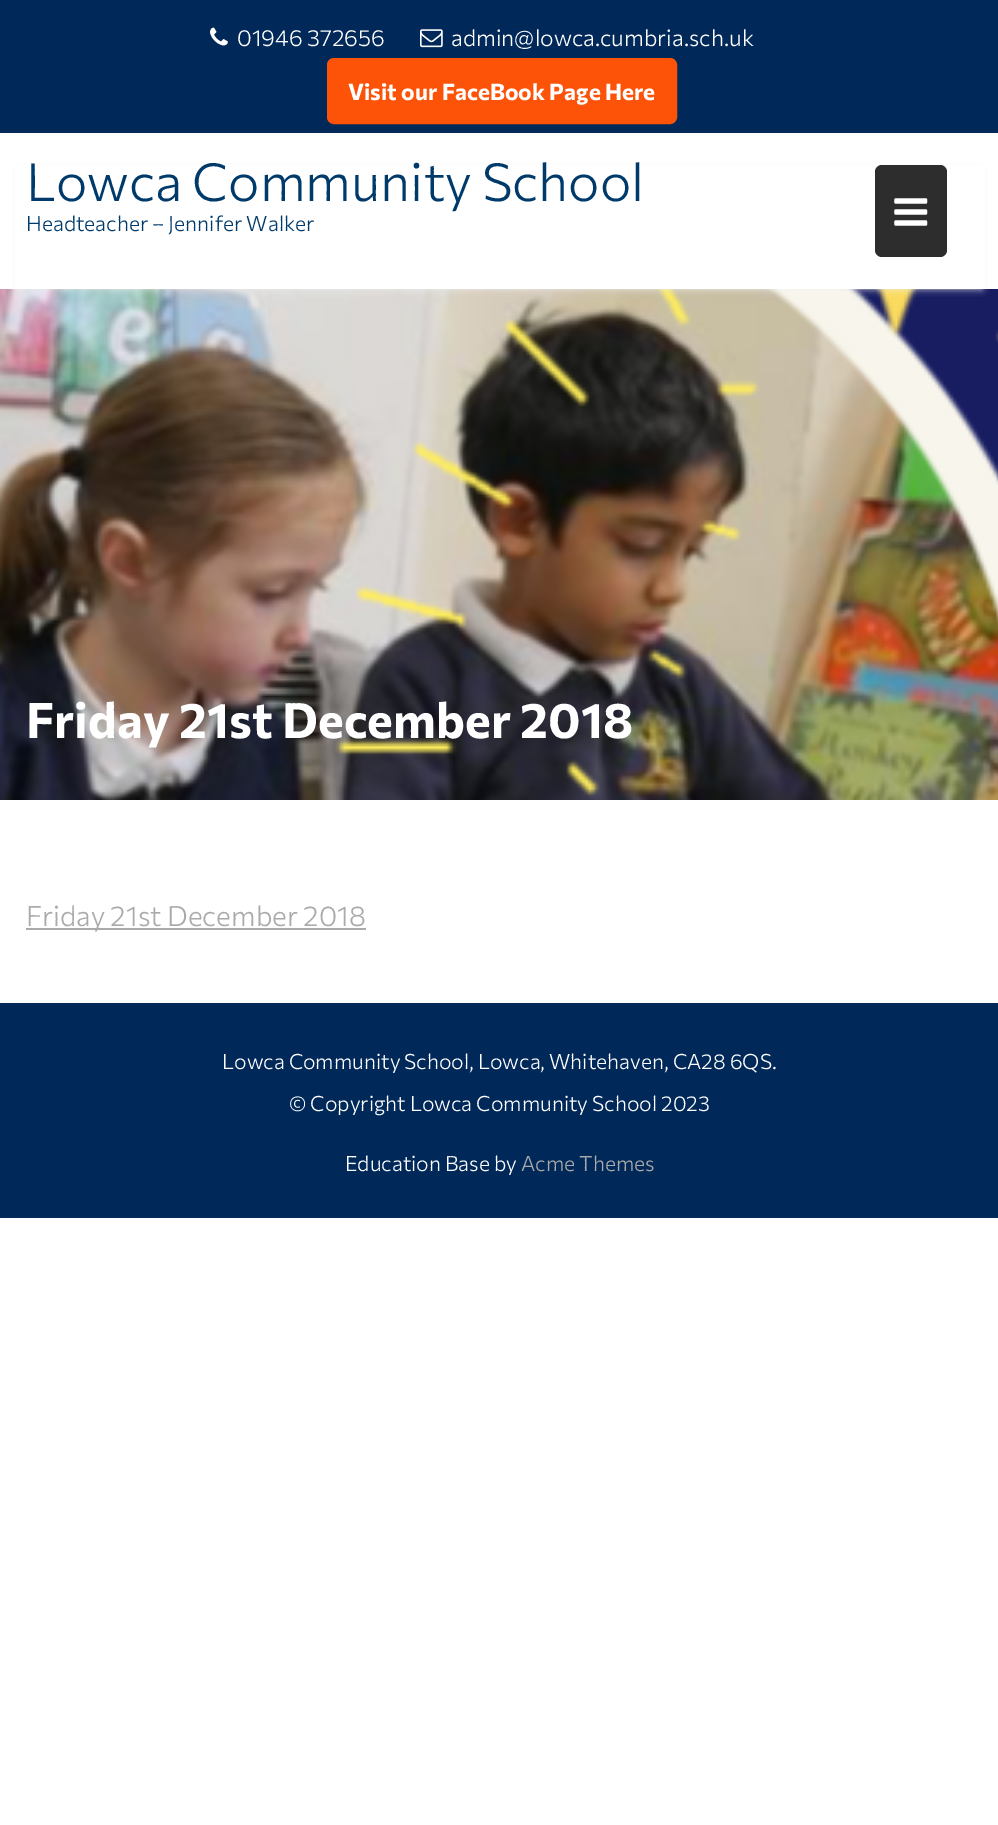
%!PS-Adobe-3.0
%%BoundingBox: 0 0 998 1825
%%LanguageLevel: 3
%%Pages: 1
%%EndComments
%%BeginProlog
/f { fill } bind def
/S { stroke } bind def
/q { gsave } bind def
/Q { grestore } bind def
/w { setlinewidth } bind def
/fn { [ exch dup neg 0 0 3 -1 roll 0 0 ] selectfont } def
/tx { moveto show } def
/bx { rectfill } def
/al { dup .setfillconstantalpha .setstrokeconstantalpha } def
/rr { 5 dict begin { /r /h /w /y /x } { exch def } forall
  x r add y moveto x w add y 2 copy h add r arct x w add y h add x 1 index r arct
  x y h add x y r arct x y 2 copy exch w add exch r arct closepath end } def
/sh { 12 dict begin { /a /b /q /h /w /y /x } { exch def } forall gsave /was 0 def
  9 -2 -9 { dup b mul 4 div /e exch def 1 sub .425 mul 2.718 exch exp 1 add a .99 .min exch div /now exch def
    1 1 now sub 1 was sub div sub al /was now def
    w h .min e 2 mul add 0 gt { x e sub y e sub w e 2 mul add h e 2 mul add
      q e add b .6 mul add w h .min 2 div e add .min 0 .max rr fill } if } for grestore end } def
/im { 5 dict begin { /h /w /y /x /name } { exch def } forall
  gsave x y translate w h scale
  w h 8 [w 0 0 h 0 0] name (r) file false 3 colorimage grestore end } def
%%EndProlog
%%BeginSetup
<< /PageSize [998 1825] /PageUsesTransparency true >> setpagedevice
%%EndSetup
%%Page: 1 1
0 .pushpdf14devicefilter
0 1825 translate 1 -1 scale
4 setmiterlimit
1 setgray
0 0 998 1825 bx
0 0.157 0.345 setrgbcolor
0 0 998 133 bx
(image0.raw) 210 27 18 19 im
/Commissioner-Light 22.75 fn
1 setgray
(01946 372656) 237 46 tx
(image1.raw) 420 29 23 19 im
(admin@lowca.cumbria.sch.uk) 451 46 tx
0.992 0.325 0.031 setrgbcolor
329 60 346 62 5 rr q f Q
4 w
S
/Commissioner-Bold 22.75 fn
1 setgray
(Visit our FaceBook Page Here) 348 100 tx
(image3.raw) 0 289 998 511 im
0.933 setgray
18 168 964 121 0 3.5 0.9 sh
1 setgray
15 165 970 124 bx
/Commissioner-Light 52.5 fn
0 0.227 0.416 setrgbcolor
(Lowca Community School) 26 201 tx
0.176 setgray
875 165 72 92 7 rr f
(image2.raw) 894 198 34 28 im
/Commissioner-Light 21 fn
0 0.227 0.416 setrgbcolor
(Headteacher – Jennifer Walker) 26 231 tx
/Commissioner-Bold 49 fn
1 setgray
(Friday 21st December 2018) 26 738 tx
0.667 setgray
26 928 340 2 bx
/Commissioner-Light 28 fn
(Friday 21st December 2018) 26 926 tx
0 0.157 0.345 setrgbcolor
0 1003 998 215 bx
/Commissioner-Light 21 fn
1 setgray
(Lowca Community School, Lowca, Whitehaven, CA28 6QS.) 222 1069 tx
(© Copyright Lowca Community School 2023) 289 1111 tx
(Education Base by) 345 1171 tx
0.667 setgray
(Acme Themes) 521 1171 tx
.poppdf14devicefilter showpage
%%EOF
